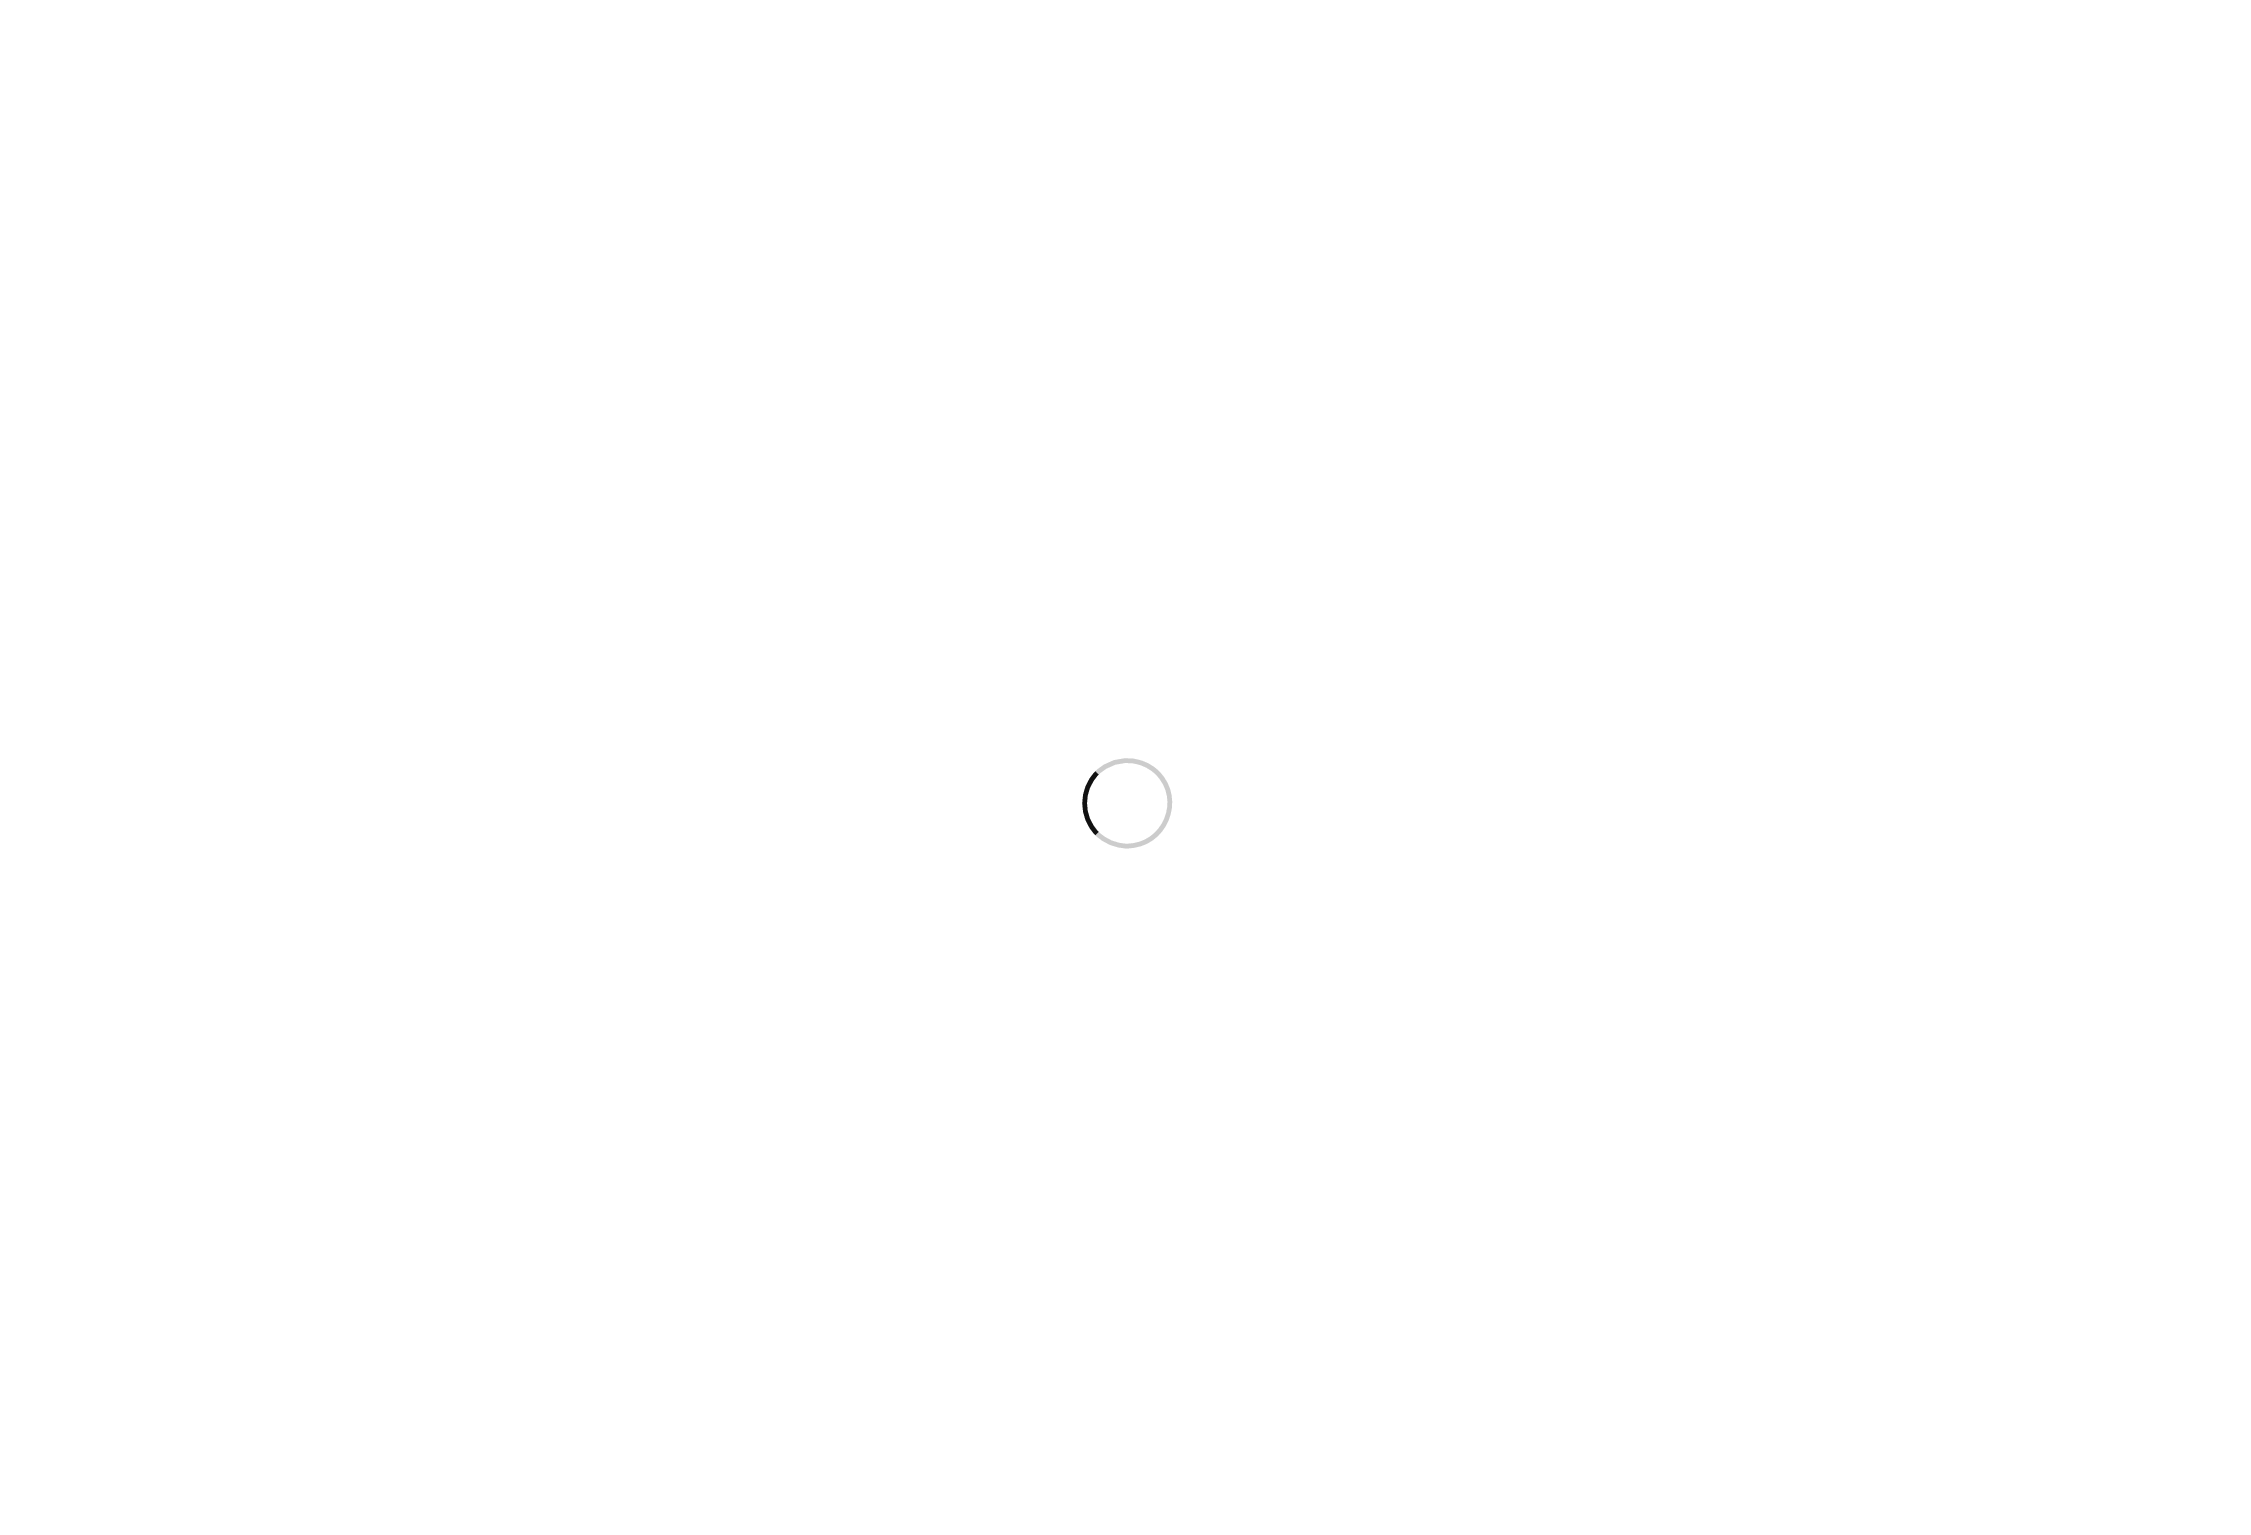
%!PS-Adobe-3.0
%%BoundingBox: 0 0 2251 1535
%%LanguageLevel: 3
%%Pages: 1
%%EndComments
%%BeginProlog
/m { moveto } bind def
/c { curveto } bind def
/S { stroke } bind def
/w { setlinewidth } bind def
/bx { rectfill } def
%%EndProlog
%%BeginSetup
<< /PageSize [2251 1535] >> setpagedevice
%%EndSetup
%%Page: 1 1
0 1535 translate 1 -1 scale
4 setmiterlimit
1 setgray
0 0 2251 1535 bx
0.8 setgray
4.5 w
1097 773 m 1107 763 1121.5 758.5 1135.5 761.5 c 1144 763 1151.5 767 1157.5 773 c 1184 799.5 1165 846 1127 846 c 1116 846 1105 841.5 1097 833.5 c S
0.067 setgray
1097 833.5 m 1080.5 817 1080.5 789.5 1097 773 c S
showpage
%%EOF
